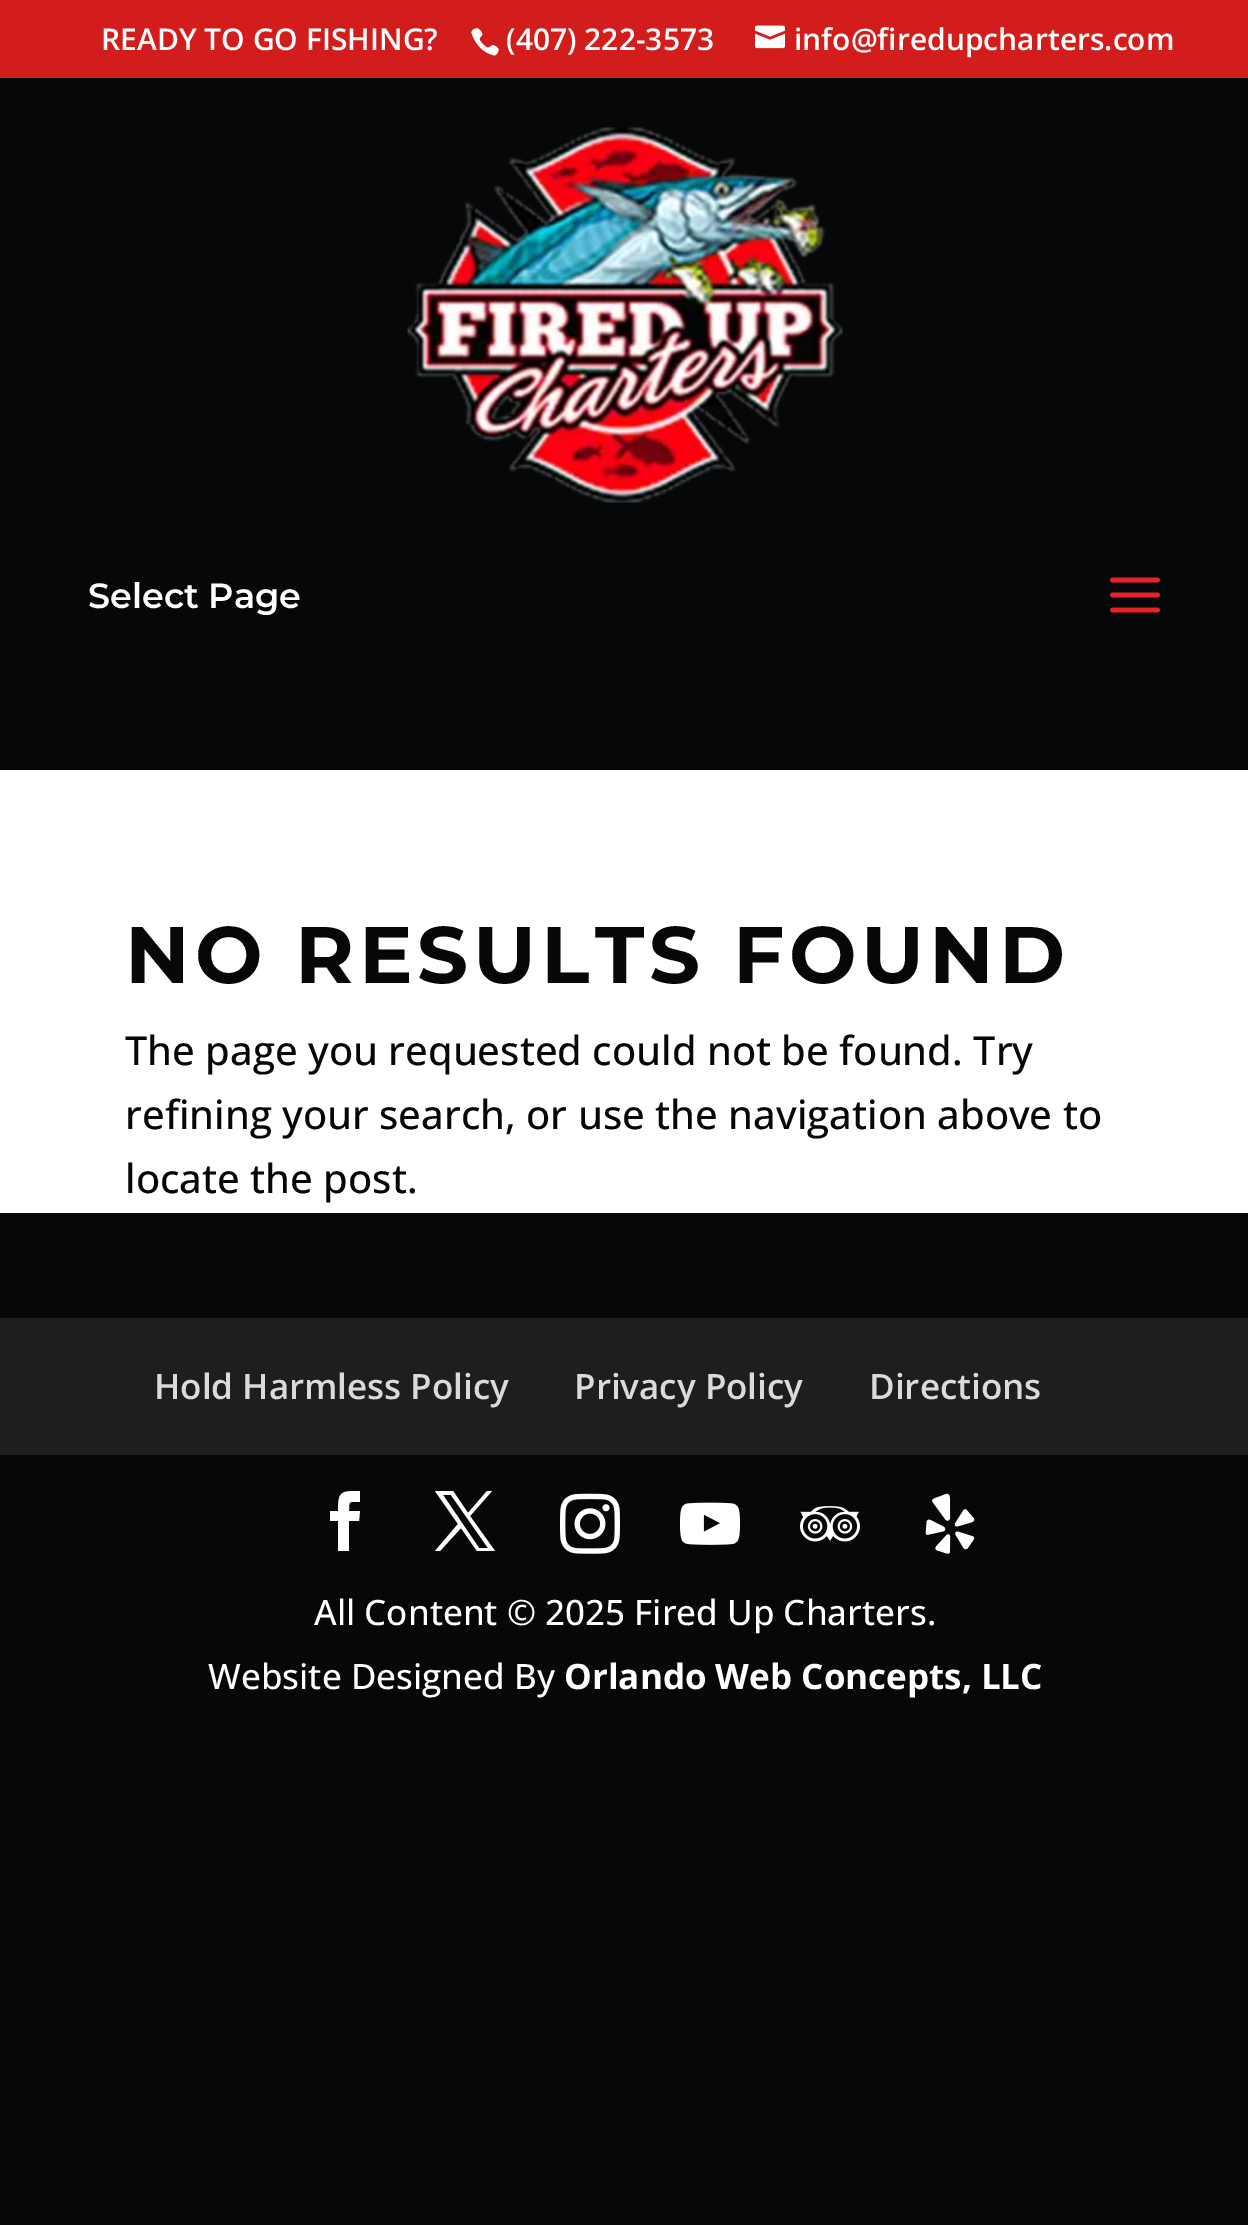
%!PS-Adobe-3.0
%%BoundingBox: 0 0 1248 2225
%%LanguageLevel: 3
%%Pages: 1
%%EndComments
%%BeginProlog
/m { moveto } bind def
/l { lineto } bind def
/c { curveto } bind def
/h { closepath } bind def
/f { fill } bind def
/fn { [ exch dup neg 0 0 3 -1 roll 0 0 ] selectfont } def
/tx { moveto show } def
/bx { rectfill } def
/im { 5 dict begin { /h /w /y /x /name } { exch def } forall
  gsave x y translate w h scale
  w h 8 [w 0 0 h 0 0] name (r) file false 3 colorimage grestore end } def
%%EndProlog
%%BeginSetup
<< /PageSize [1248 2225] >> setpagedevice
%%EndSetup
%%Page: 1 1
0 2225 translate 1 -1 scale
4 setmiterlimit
0.02 0.027 0.031 setrgbcolor
0 0 1248 2225 bx
0.827 0.114 0.114 setrgbcolor
0 0 1248 78 bx
/OpenSans-SemiBold 30 fn
1 setgray
(READY TO GO FISHING?) 101 50 tx
(image0.raw) 471 28 28 28 im
(\(407\) 222-3573) 506 50 tx
(image1.raw) 755 25 30 24 im
(info@firedupcharters.com) 794 50 tx
(image2.raw) 407 127 436 376 im
/Montserrat-SemiBold 35 fn
(Select Page) 88 608 tx
(image3.raw) 1110 577 50 36 im
0 770 1248 443 bx
/Montserrat-Bold 80 fn
0.02 0.027 0.031 setrgbcolor
125 983 m 5 0 (NO RESULTS FOUND) ashow
/OpenSans-Medium 40 fn
(The page you requested could not be found. Try) 125 1065 tx
(refining your search, or use the navigation above to) 125 1129 tx
(locate the post.) 125 1193 tx
0.118 setgray
0 1318 1248 137 bx
/OpenSans-SemiBold 35 fn
0.859 setgray
(Hold Harmless Policy) 154 1399 tx
(Privacy Policy) 574 1399 tx
(Directions) 869 1399 tx
1 setgray
338 1551 m 349 1551 l 349 1521 l 359 1521 l 360 1511 l 349 1511 l 349 1500 349 1502 360 1502 c 360 1491 l 341 1491 338 1491 338 1511 c 330 1511 l 330 1521 l 338 1521 l h f
435 1491 m 458 1524 l 435 1551 l 440 1551 l 461 1528 l 477 1551 l 495 1551 l 470 1516 l 492 1491 l 487 1491 l 468 1513 l 453 1491 l h 443 1495 m 451 1495 l 488 1548 l 479 1548 l h f
(image4.raw) 560 1493 60 61 im
(image5.raw) 680 1502 60 43 im
(image6.raw) 800 1506 60 36 im
(image7.raw) 925 1493 50 61 im
/OpenSans-Medium 35 fn
(All Content © 2025 Fired Up Charters.) 314 1625 tx
(Website Designed By) 208 1689 tx
/OpenSans-Bold 35 fn
(Orlando Web Concepts, LLC) 564 1689 tx
showpage
%%EOF
